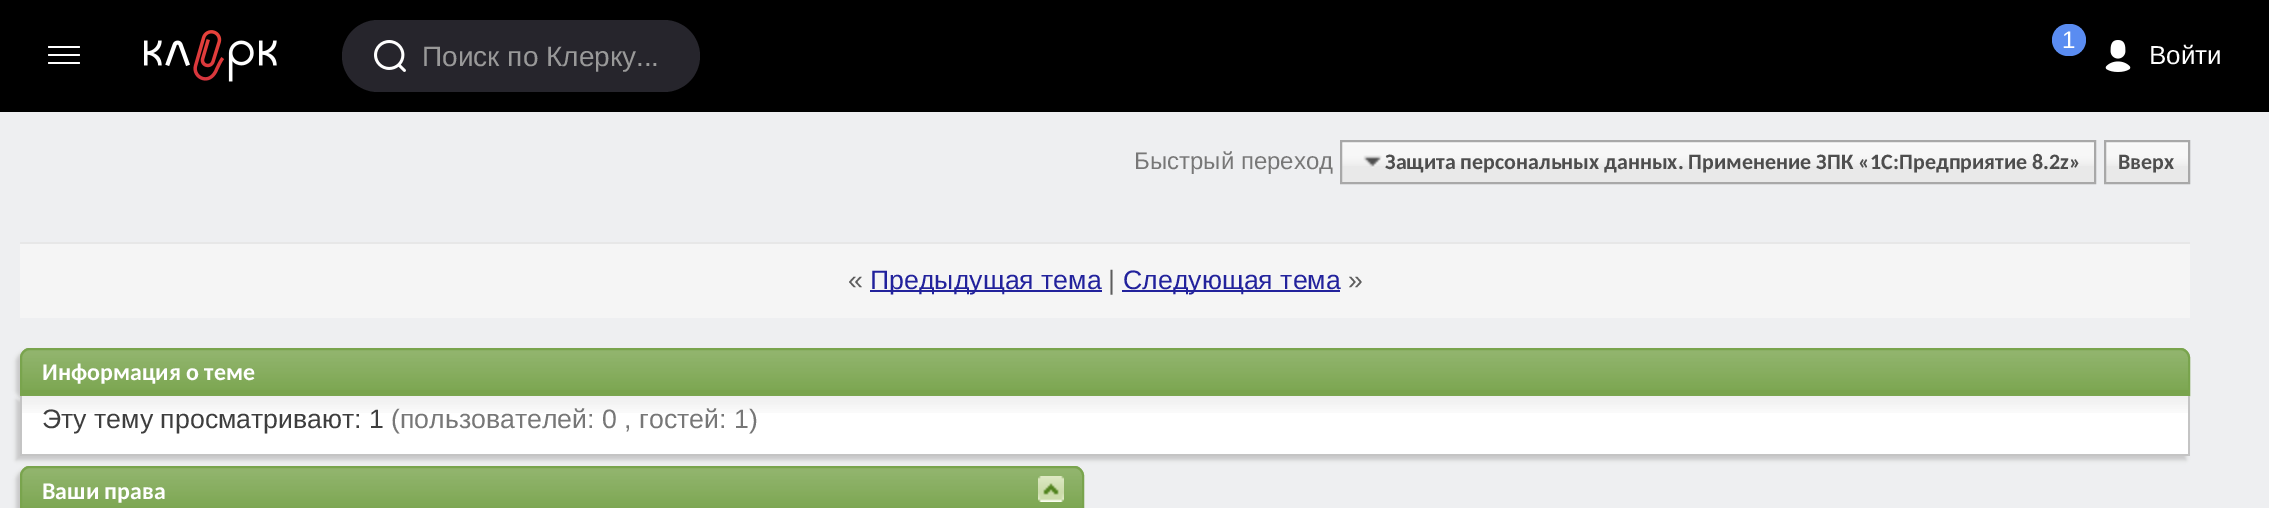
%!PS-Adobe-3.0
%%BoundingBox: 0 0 2269 508
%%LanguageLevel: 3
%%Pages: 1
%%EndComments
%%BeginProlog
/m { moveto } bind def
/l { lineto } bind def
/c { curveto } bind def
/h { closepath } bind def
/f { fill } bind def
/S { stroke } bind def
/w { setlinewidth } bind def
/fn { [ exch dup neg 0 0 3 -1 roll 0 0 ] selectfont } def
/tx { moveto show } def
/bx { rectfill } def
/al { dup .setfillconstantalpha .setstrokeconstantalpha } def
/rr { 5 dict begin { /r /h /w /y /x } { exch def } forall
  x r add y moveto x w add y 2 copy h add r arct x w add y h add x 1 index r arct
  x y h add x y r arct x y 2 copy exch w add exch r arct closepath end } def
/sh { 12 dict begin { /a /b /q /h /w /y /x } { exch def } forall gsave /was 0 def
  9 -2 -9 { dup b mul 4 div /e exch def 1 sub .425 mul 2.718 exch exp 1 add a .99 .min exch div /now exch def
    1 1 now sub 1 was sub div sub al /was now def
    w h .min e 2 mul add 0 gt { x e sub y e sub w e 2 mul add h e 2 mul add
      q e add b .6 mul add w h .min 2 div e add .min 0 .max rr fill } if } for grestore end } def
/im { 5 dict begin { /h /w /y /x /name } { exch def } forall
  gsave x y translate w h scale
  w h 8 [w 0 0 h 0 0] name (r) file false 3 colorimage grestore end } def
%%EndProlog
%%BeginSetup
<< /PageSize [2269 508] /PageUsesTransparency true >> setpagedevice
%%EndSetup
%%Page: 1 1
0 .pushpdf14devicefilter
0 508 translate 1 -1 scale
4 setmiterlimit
0.933 0.937 0.945 setrgbcolor
0 0 2269 508 bx
0 setgray
0 0 2269 112 bx
1 setgray
48 46 32 2 1 rr f
48 54 32 2 1 rr f
48 62 32 2 1 rr f
(image0.raw) 144 30 133 52 im
0.149 0.145 0.173 setrgbcolor
342 20 358 72 36 rr f
(image1.raw) 374 40 32 32 im
/LiberationSans-Regular 28 fn
0.6 setgray
(Поиск по Клерку...) 422 66 tx
0.353 0.549 0.945 setrgbcolor
2052 24 34 32 16 rr f
/LiberationSans-Regular 24 fn
1 setgray
(1) 2062 48 tx
(image2.raw) 2105 40 26 32 im
/LiberationSans-Regular 26 fn
(Войти) 2149 64 tx
/LiberationSans-Regular 24 fn
0.467 setgray
(Быстрый переход) 1134 169 tx
0.914 setgray
1342 142 752 40 bx
(image3.raw) 1342 142 752 24 im
2106 142 82 40 bx
(image4.raw) 2106 142 82 24 im
0.659 setgray
2 w
1341 141 754 42 rectstroke
(image5.raw) 1363 155 19 13 im
/Carlito-Bold 22 fn
0.306 setgray
(Защита персональных данных. Применение ЗПК «1С:Предприятие 8.2z») 1385 169 tx
0.659 setgray
2105 141 84 42 rectstroke
0.306 setgray
(Вверх) 2118 169 tx
0.961 setgray
20 244 2170 74 bx
0.906 setgray
20 242 2170 2 bx
/LiberationSans-Regular 26.7 fn
0.365 setgray
(«) 848 289 tx
0.133 0.133 0.612 setrgbcolor
870 290 232 2 bx
(Предыдущая тема) 870 289 tx
0.365 setgray
(|) 1108 289 tx
0.133 0.133 0.612 setrgbcolor
1122 290 218 2 bx
(Следующая тема) 1123 289 tx
0.365 setgray
(») 1348 289 tx
0.784 setgray
16 352 2170 48 10 2 1 sh
0.475 0.643 0.302 setrgbcolor
30 348 m 2180 348 l 2185.5 348 2190 352.5 2190 358 c 2190 396 l 20 396 l 20 358 l 20 352.5 24.5 348 30 348 c h f
(image6.raw) 20 350 2170 40 im
30 349 m 2180 349 l 2185 349 2189 353 2189 358 c 2189 395 l 21 395 l 21 358 l 21 353 25 349 30 349 c h S
/Carlito-Bold 24 fn
1 setgray
(Информация о теме) 42 380 tx
0.784 setgray
16 400 2170 60 0 2 1 sh
1 setgray
22 396 2166 58 bx
(image7.raw) 22 396 2166 17 im
0.769 setgray
2188 396 2 60 bx
20 454 2170 2 bx
20 396 2 60 bx
/LiberationSans-Regular 26.7 fn
0.243 setgray
(Эту тему просматривают: 1) 42 428 tx
0.467 setgray
(\(пользователей: 0 , гостей: 1\)) 391 428 tx
0.784 setgray
16 470 1064 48 10 2 1 sh
0.475 0.643 0.302 setrgbcolor
30 466 m 1074 466 l 1079.5 466 1084 470.5 1084 476 c 1084 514 l 20 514 l 20 476 l 20 470.5 24.5 466 30 466 c h f
(image8.raw) 20 468 1064 40 im
30 467 m 1074 467 l 1079 467 1083 471 1083 476 c 1083 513 l 21 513 l 21 476 l 21 471 25 467 30 467 c h S
/Carlito-Bold 24 fn
1 setgray
(Ваши права) 42 499 tx
(image9.raw) 1038 476 26 26 im
.poppdf14devicefilter showpage
%%EOF
